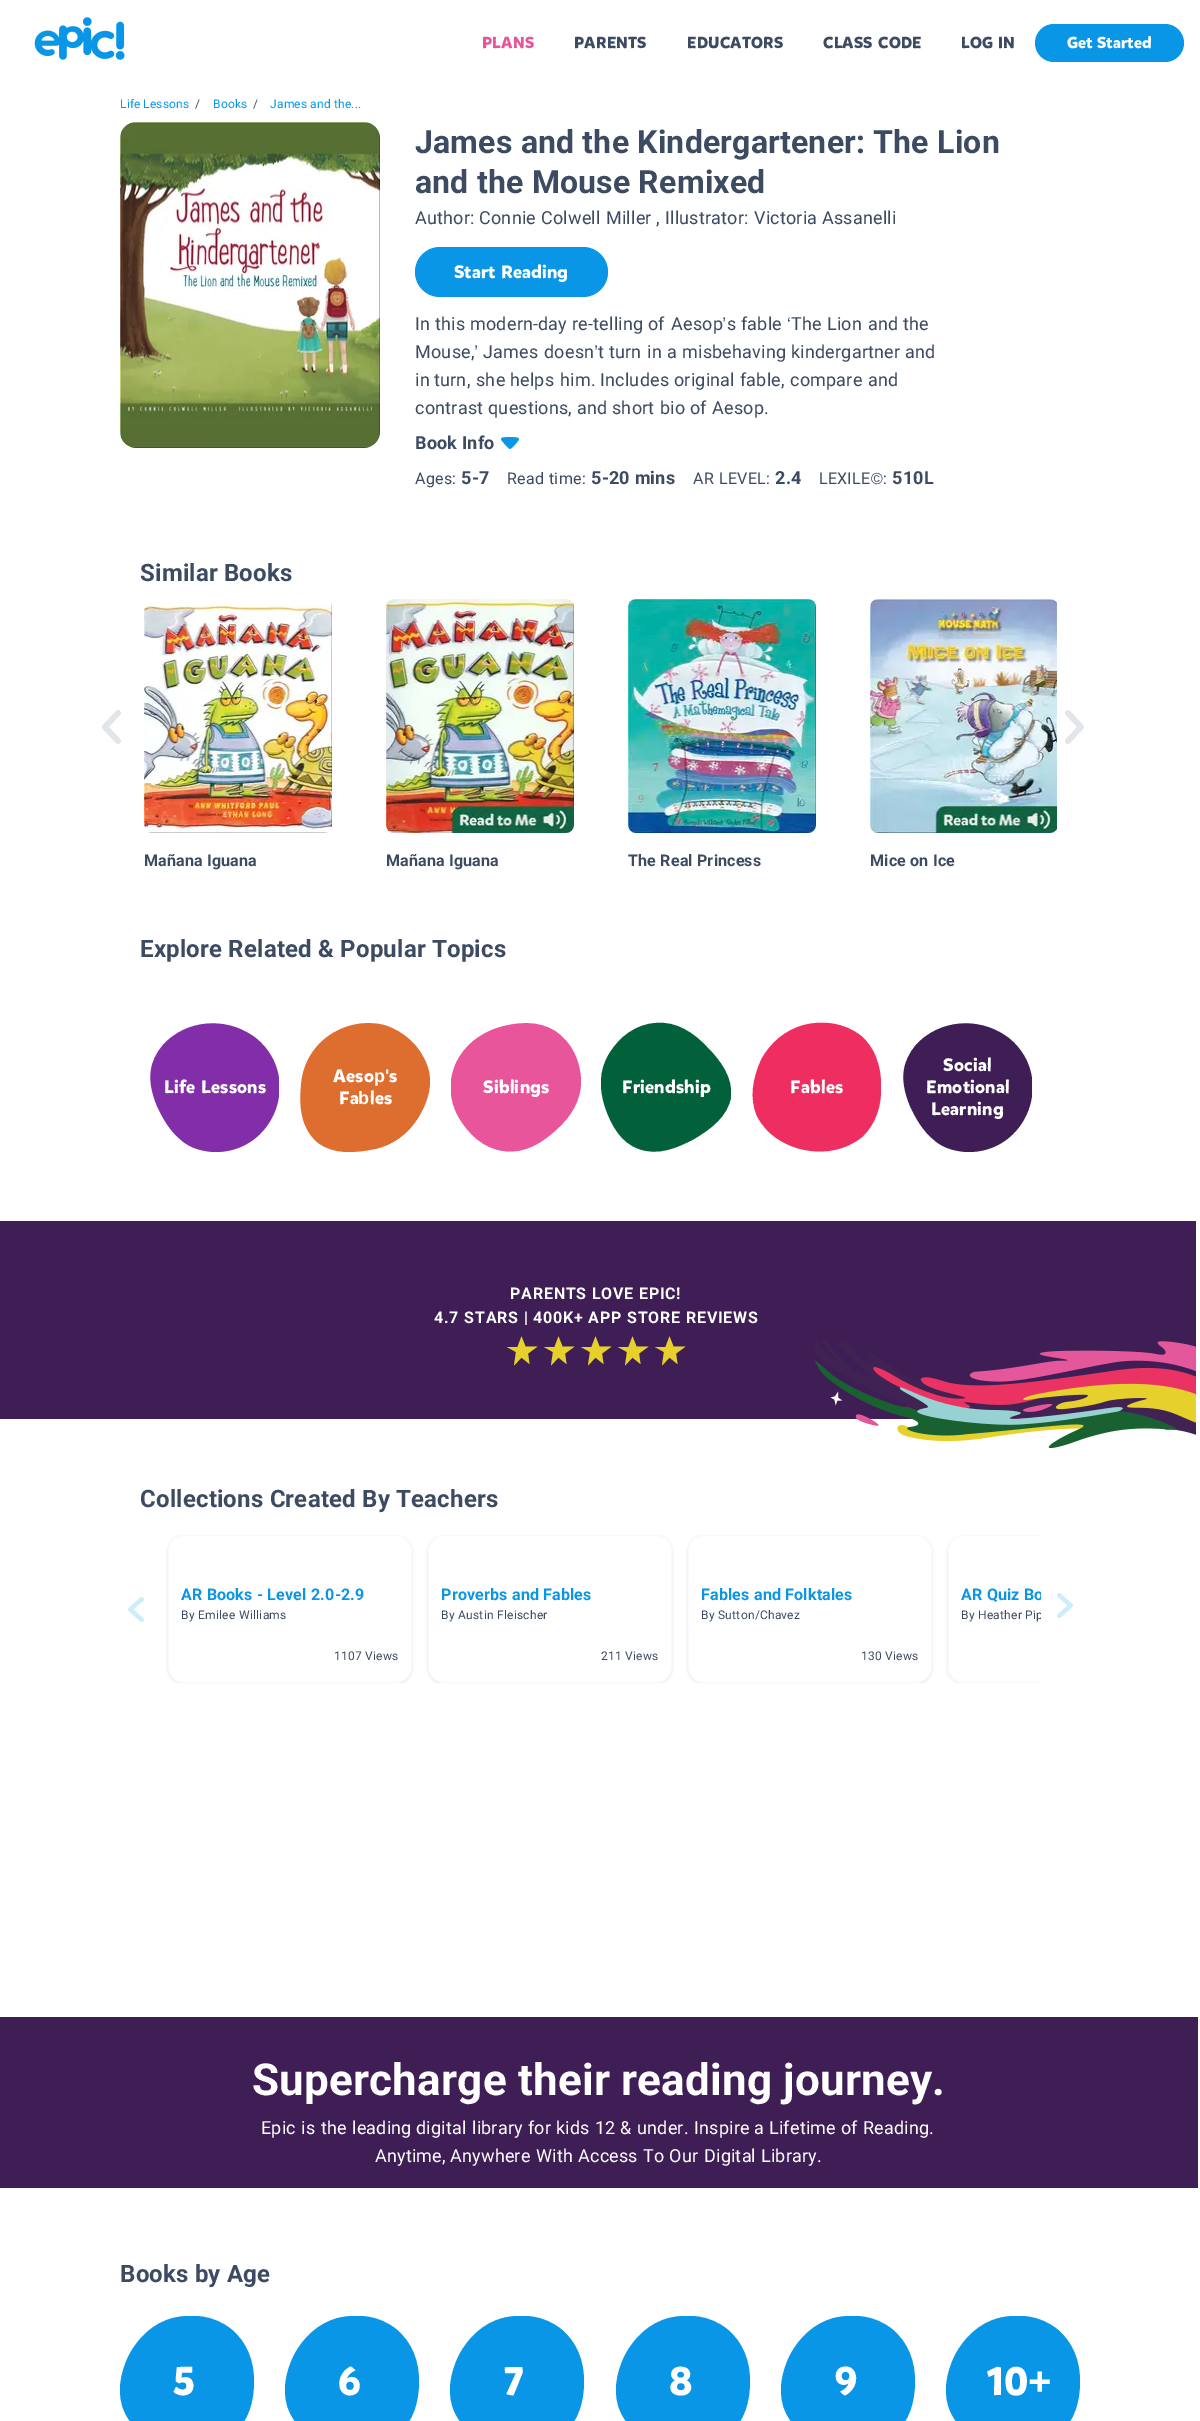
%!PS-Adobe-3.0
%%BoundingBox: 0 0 1200 2421
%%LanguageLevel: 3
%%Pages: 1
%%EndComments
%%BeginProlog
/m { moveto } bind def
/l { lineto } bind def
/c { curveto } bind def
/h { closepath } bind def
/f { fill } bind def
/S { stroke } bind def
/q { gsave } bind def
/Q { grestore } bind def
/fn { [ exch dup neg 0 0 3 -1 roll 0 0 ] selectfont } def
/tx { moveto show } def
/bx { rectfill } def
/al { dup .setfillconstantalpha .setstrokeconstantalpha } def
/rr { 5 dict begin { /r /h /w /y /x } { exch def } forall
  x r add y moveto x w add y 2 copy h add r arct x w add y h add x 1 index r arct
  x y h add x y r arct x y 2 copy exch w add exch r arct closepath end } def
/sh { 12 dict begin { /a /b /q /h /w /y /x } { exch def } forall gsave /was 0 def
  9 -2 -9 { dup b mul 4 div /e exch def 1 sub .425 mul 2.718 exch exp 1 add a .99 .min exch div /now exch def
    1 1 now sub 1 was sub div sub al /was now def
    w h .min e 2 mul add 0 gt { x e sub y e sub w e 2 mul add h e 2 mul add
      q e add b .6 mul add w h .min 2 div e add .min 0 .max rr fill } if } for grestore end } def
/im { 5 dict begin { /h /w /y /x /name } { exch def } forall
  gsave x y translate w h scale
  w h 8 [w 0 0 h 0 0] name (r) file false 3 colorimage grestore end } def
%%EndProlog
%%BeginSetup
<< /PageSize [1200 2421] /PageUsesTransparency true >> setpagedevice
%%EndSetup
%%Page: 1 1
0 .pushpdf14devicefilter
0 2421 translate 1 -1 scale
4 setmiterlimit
1 setgray
0 0 1200 2421 bx
(image0.raw) 34 17 91 43 im
/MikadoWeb-Bold 16 fn
0.914 0.333 0.608 setrgbcolor
482 48 m 0.2 0 (PLANS) ashow
0.235 0.294 0.384 setrgbcolor
574 48 m 0.2 0 (PARENTS) ashow
687 48 m 0.2 0 (EDUCATORS) ashow
823 48 m 0.2 0 (CLASS) ashow
878 48 m 0.2 0 (CODE) ashow
961 48 m 0.2 0 (LOG) ashow
998 48 m 0.2 0 (IN) ashow
0.039 0.588 0.902 setrgbcolor
1035 24 149 38 19 rr f
1 setgray
(Get) 1067 48 tx
(Started) 1097 48 tx
/Roboto-Regular 12 fn
0.039 0.588 0.902 setrgbcolor
120 108 m 0.2 0 (Life) ashow
143 108 m 0.2 0 (Lessons) ashow
0.235 0.294 0.384 setrgbcolor
195 108 m 0.2 0 (/) ashow
0.039 0.588 0.902 setrgbcolor
213 108 m 0.2 0 (Books) ashow
0.235 0.294 0.384 setrgbcolor
253 108 m 0.2 0 (/) ashow
0.039 0.588 0.902 setrgbcolor
270 108 m 0.2 0 (James) ashow
310 108 m 0.2 0 (and) ashow
334 108 m 0.2 0 (the...) ashow
(image1.raw) 120 122 260 326 im
/Roboto-Bold 32 fn
0.235 0.294 0.384 setrgbcolor
415 153 m 0.2 0 (James and the Kindergartener: The Lion) ashow
415 193 m 0.2 0 (and the Mouse Remixed) ashow
/Roboto-Regular 18 fn
415 224 m 0.2 0 (Author:) ashow
479 224 m 0.2 0 (Connie) ashow
541 224 m 0.2 0 (Colwell) ashow
606 224 m 0.2 0 (Miller) ashow
656 224 m 0.2 0 (,) ashow
665 224 m 0.2 0 (Illustrator:) ashow
754 224 m 0.2 0 (Victoria) ashow
822 224 m 0.2 0 (Assanelli) ashow
0.039 0.588 0.902 setrgbcolor
415 247 193 50 25 rr f
/MikadoWeb-Bold 18 fn
1 setgray
(Start) 454 278 tx
(Reading) 501 278 tx
/Roboto-Regular 18 fn
0.235 0.294 0.384 setrgbcolor
415 330 m 0.2 0 (In) ashow
435 330 m 0.2 0 (this) ashow
470 330 m 0.2 0 (modern-day) ashow
572 330 m 0.2 0 (re-telling) ashow
648 330 m 0.2 0 (of) ashow
671 330 m 0.2 0 (Aesop) ashow
/LiberationSans-Regular 18 fn
722 330 m 0.2 0 (’) ashow
/Roboto-Regular 18 fn
727 330 m 0.2 0 (s) ashow
741 330 m 0.2 0 (fable) ashow
/LiberationSans-Regular 18 fn
787 330 m 0.2 0 (‘) ashow
/Roboto-Regular 18 fn
791 330 m 0.2 0 (The) ashow
827 330 m 0.2 0 (Lion) ashow
868 330 m 0.2 0 (and) ashow
903 330 m 0.2 0 (the) ashow
415 358 m 0.2 0 (Mouse,) ashow
/LiberationSans-Regular 18 fn
474 358 m 0.2 0 (’) ashow
/Roboto-Regular 18 fn
483 358 m 0.2 0 (James) ashow
544 358 m 0.2 0 (doesn) ashow
/LiberationSans-Regular 18 fn
594 358 m 0.2 0 (’) ashow
/Roboto-Regular 18 fn
598 358 m 0.2 0 (t) ashow
609 358 m 0.2 0 (turn) ashow
647 358 m 0.2 0 (in) ashow
667 358 m 0.2 0 (a) ashow
682 358 m 0.2 0 (misbehaving) ashow
791 358 m 0.2 0 (kindergartner) ashow
905 358 m 0.2 0 (and) ashow
415 386 m 0.2 0 (in) ashow
434 386 m 0.2 0 (turn,) ashow
476 386 m 0.2 0 (she) ashow
510 386 m 0.2 0 (helps) ashow
560 386 m 0.2 0 (him.) ashow
600 386 m 0.2 0 (Includes) ashow
674 386 m 0.2 0 (original) ashow
740 386 m 0.2 0 (fable,) ashow
790 386 m 0.2 0 (compare) ashow
868 386 m 0.2 0 (and) ashow
415 414 m 0.2 0 (contrast) ashow
488 414 m 0.2 0 (questions,) ashow
577 414 m 0.2 0 (and) ashow
612 414 m 0.2 0 (short) ashow
660 414 m 0.2 0 (bio) ashow
690 414 m 0.2 0 (of) ashow
712 414 m 0.2 0 (Aesop.) ashow
/Roboto-Bold 18 fn
415 449 m 0.2 0 (Book Info) ashow
(image2.raw) 501 437 18 12 im
/Roboto-Regular 16 fn
415 484 m 0.25 0 (Ages:) ashow
/Roboto-Bold 18 fn
461 484 m 0.2 0 (5-7) ashow
/Roboto-Regular 16 fn
507 484 m 0.25 0 (Read) ashow
549 484 m 0.25 0 (time:) ashow
/Roboto-Bold 18 fn
591 484 m 0.2 0 (5-20 mins) ashow
/Roboto-Regular 16 fn
693 484 m 0.25 0 (AR) ashow
719 484 m 0.25 0 (LEVEL:) ashow
/Roboto-Bold 18 fn
775 484 m 0.2 0 (2.4) ashow
/Roboto-Regular 16 fn
819 484 m 0.25 0 (LEXILE) ashow
/LiberationSans-Regular 16 fn
871 484 m 0.25 0 (©) ashow
/Roboto-Regular 16 fn
883 484 m 0.25 0 (:) ashow
/Roboto-Bold 18 fn
892 484 m 0.2 0 (510L) ashow
/Roboto-Bold 24 fn
140 581 m 0.2 0 (Similar Books) ashow
(image3.raw) 102 710 19 34 im
(image4.raw) 1065 710 19 34 im
(image5.raw) 144 603 188 230 im
/Roboto-Bold 16 fn
144 866 m 0.2 0 (Mañana Iguana) ashow
(image6.raw) 386 599 188 234 im
386 866 m 0.2 0 (Mañana Iguana) ashow
(image7.raw) 628 599 188 234 im
q
628 849 188 24 rectclip
628 866 m 0.2 0 (The Real Princess) ashow
Q
(image8.raw) 870 599 187 234 im
870 866 m 0.2 0 (Mice on Ice) ashow
/Roboto-Bold 24 fn
140 957 m 0.2 0 (Explore Related & Popular Topics) ashow
q
150 1022 129 130 rectclip
0.51 0.18 0.663 setrgbcolor
257 1039 m 303 1078 274 1154 213 1152 c 201 1151 190 1148 181 1140 c 170 1131 163 1119 157 1106 c 152 1094 148 1079 152 1065 c 155 1055 160 1047 168 1040 c 193 1018 231 1018 257 1039 c h f
Q
/MikadoWeb-Bold 18 fn
1 setgray
164 1093 m 0.2 0 (Life) ashow
201 1093 m 0.2 0 (Lessons) ashow
0.867 0.431 0.184 setrgbcolor
384 1025 m 404 1031 420 1046 427 1065 c 434 1083 428 1102 418 1118 c 408 1134 393 1145 375 1149 c 355 1153 333 1155 317 1142 c 301 1128 299 1106 301 1086 c 302 1067 311 1049 327 1037 c 343 1025 364 1020 384 1025 c h f
1 setgray
333 1082 m 0.2 0 (Aeso) ashow
/LiberationSans-Bold 18 fn
374 1082 m 0.2 0 (p') ashow
/MikadoWeb-Bold 18 fn
389 1082 m 0.2 0 (s) ashow
339 1104 m 0.2 0 (Fa les) ashow
/LiberationSans-Bold 18 fn
358 1104 m 0.2 0 (b) ashow
q
451 1022 130 130 rectclip
0.914 0.333 0.608 setrgbcolor
555 1031 m 572 1042 581 1062 581 1082 c 581 1100 571 1117 556 1130 c 542 1143 524 1154 504 1151 c 484 1149 468 1134 458 1116 c 449 1100 448 1080 456 1063 c 464 1046 479 1034 497 1028 c 516 1022 538 1020 555 1031 c h f
Q
/MikadoWeb-Bold 18 fn
483 1093 m 0.2 0 (Siblings) ashow
q
601 1022 130 130 rectclip
0.008 0.38 0.231 setrgbcolor
707 1047 m 721 1061 733 1078 731 1097 c 728 1116 711 1129 694 1139 c 677 1148 658 1156 639 1149 c 621 1143 611 1125 605 1107 c 599 1089 599 1070 609 1054 c 619 1037 636 1024 656 1023 c 676 1021 694 1033 707 1047 c h f
Q
622 1093 m 0.2 0 (Friendship) ashow
q
752 1022 129 130 rectclip
0.933 0.18 0.376 setrgbcolor
860 1035 m 875 1047 881 1066 881 1085 c 882 1105 876 1124 862 1137 c 846 1150 825 1154 805 1150 c 784 1146 766 1134 757 1116 c 749 1098 753 1078 761 1060 c 770 1043 785 1030 804 1025 c 823 1020 844 1023 860 1035 c h f
Q
790 1093 m 0.2 0 (Fables) ashow
q
903 1022 129 130 rectclip
0.247 0.118 0.337 setrgbcolor
1010 1039 m 1056 1078 1027 1154 966 1152 c 954 1151 943 1148 934 1140 c 923 1131 916 1119 910 1106 c 905 1094 901 1079 905 1065 c 908 1055 913 1047 921 1040 c 946 1018 984 1018 1010 1039 c h f
Q
943 1071 m 0.2 0 (Social) ashow
926 1093 m 0.2 0 (Emotional) ashow
931 1115 m 0.2 0 (Learning) ashow
0.247 0.118 0.337 setrgbcolor
0 1221 1196 198 bx
/Roboto-Bold 16 fn
1 setgray
510 1299 m 0.8 0 (PARENTS LOVE EPIC!) ashow
434 1323 m 0.8 0 (4.7 STARS | 400K+ APP STORE REVIEWS) ashow
0.902 0.816 0.173 setrgbcolor
529.5 1364 m 521.5 1357.5 l 514 1365.5 l 516 1352 l 507 1347 l 517.5 1347 l 521.5 1336.5 l 525.5 1346.5 l 537.5 1346.5 l 528 1353.5 l h f
566.5 1364 m 558.5 1357.5 l 551 1365.5 l 553 1352 l 544 1347 l 554.5 1347 l 558.5 1336.5 l 562.5 1346.5 l 574.5 1346.5 l 565 1353.5 l h f
603.5 1364 m 595.5 1357.5 l 588 1365.5 l 590 1352 l 581 1347 l 591.5 1347 l 595.5 1336.5 l 599.5 1346.5 l 611.5 1346.5 l 602 1353.5 l h f
640.5 1364 m 632.5 1357.5 l 625 1365.5 l 627 1352 l 618 1347 l 628.5 1347 l 632.5 1336.5 l 636.5 1346.5 l 648.5 1346.5 l 639 1353.5 l h f
677.5 1364 m 669.5 1357.5 l 662 1365.5 l 664 1352 l 655 1347 l 665.5 1347 l 669.5 1336.5 l 673.5 1346.5 l 685.5 1346.5 l 676 1353.5 l h f
(image9.raw) 814 1341 382 108 im
/Roboto-Bold 24 fn
0.235 0.294 0.384 setrgbcolor
140 1507 m 0.2 0 (Collections Created By Teachers) ashow
(image10.raw) 128 1597 16 25 im
q
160 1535 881 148 rectclip
0.169 0.278 0.408 setrgbcolor
168 1536 244 148 16 1.5 0.15 sh
Q
1 setgray
168.5 1535.5 243 147 15.5 rr q f Q
0.976 0.98 0.992 setrgbcolor
S
/Roboto-Bold 16 fn
0.039 0.588 0.902 setrgbcolor
181 1600 m 0.2 0 (AR Books - Level 2.0-2.9) ashow
/Roboto-Regular 12 fn
0.235 0.294 0.384 setrgbcolor
181 1619 m 0.25 0 (By) ashow
198 1619 m 0.25 0 (Emilee) ashow
239 1619 m 0.25 0 (Williams) ashow
334 1660 m 0.25 0 (1107) ashow
365 1660 m 0.25 0 (Views) ashow
q
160 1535 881 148 rectclip
0.169 0.278 0.408 setrgbcolor
428 1536 244 148 16 1.5 0.15 sh
Q
1 setgray
428.5 1535.5 243 147 15.5 rr q f Q
0.976 0.98 0.992 setrgbcolor
S
/Roboto-Bold 16 fn
0.039 0.588 0.902 setrgbcolor
441 1600 m 0.2 0 (Proverbs and Fables) ashow
/Roboto-Regular 12 fn
0.235 0.294 0.384 setrgbcolor
441 1619 m 0.25 0 (By) ashow
458 1619 m 0.25 0 (Austin) ashow
497 1619 m 0.25 0 (Fleischer) ashow
601 1660 m 0.25 0 (211) ashow
625 1660 m 0.25 0 (Views) ashow
q
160 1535 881 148 rectclip
0.169 0.278 0.408 setrgbcolor
688 1536 244 148 16 1.5 0.15 sh
Q
1 setgray
688.5 1535.5 243 147 15.5 rr q f Q
0.976 0.98 0.992 setrgbcolor
S
/Roboto-Bold 16 fn
0.039 0.588 0.902 setrgbcolor
701 1600 m 0.2 0 (Fables and Folktales) ashow
/Roboto-Regular 12 fn
0.235 0.294 0.384 setrgbcolor
701 1619 m 0.25 0 (By) ashow
718 1619 m 0.25 0 (Sutton/Chavez) ashow
861 1660 m 0.25 0 (130) ashow
885 1660 m 0.25 0 (Views) ashow
q
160 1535 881 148 rectclip
0.169 0.278 0.408 setrgbcolor
948 1536 244 148 16 1.5 0.15 sh
Q
1 setgray
964 1535 m 1041 1535 l 1041 1683 l 964 1683 l 955 1683 948 1676 948 1667 c 948 1551 l 948 1542 955 1535 964 1535 c h f
q
160 1535 881 148 rectclip
0.976 0.98 0.992 setrgbcolor
948.5 1535.5 243 147 15.5 rr S
Q
q
961 1584 80 22 rectclip
/Roboto-Bold 16 fn
0.039 0.588 0.902 setrgbcolor
961 1600 m 0.2 0 (AR Quiz Bo) ashow
Q
0.235 0.294 0.384 setrgbcolor
961 1619 m 0.25 0 (By) ashow
978 1619 m 0.25 0 (Heather) ashow
q
961 1606 80 38 rectclip
1025 1619 m 0.25 0 (Pip) ashow
Q
(image11.raw) 1057 1593 16 25 im
0.247 0.118 0.337 setrgbcolor
0 2017 1198 171 bx
/Roboto-Bold 44 fn
1 setgray
252 2095 m 0.2 0 (Supercharge their reading journey.) ashow
/Roboto-Regular 18 fn
261 2134 m 0.2 0 (Epic) ashow
301 2134 m 0.2 0 (is) ashow
321 2134 m 0.2 0 (the) ashow
352 2134 m 0.2 0 (leading) ashow
416 2134 m 0.2 0 (digital) ashow
472 2134 m 0.2 0 (library) ashow
528 2134 m 0.2 0 (for) ashow
556 2134 m 0.2 0 (kids) ashow
595 2134 m 0.2 0 (12) ashow
620 2134 m 0.2 0 (&) ashow
637 2134 m 0.2 0 (under.) ashow
694 2134 m 0.2 0 (Inspire) ashow
754 2134 m 0.2 0 (a) ashow
769 2134 m 0.2 0 (Lifetime) ashow
841 2134 m 0.2 0 (of) ashow
863 2134 m 0.2 0 (Reading.) ashow
375 2162 m 0.2 0 (Anytime,) ashow
450 2162 m 0.2 0 (Anywhere) ashow
536 2162 m 0.2 0 (With) ashow
578 2162 m 0.2 0 (Access) ashow
643 2162 m 0.2 0 (To) ashow
669 2162 m 0.2 0 (Our) ashow
704 2162 m 0.2 0 (Digital) ashow
761 2162 m 0.2 0 (Library.) ashow
/Roboto-Bold 24 fn
0.235 0.294 0.384 setrgbcolor
120 2282 m 0.2 0 (Books by Age) ashow
q
120 2316 134 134 rectclip
0.039 0.588 0.902 setrgbcolor
231 2329 m 247 2342 254 2361 254 2381 c 254 2401 249 2421 233 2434 c 217 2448 195 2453 174 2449 c 153 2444 134 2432 125 2413 c 116 2395 120 2373 129 2355 c 138 2338 153 2323 173 2318 c 193 2313 215 2316 231 2329 c h f
Q
/MikadoWeb-Bold 40 fn
1 setgray
173 2395 m 0.2 0 (5) ashow
q
285 2316 134 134 rectclip
0.039 0.588 0.902 setrgbcolor
396 2329 m 412 2342 419 2361 419 2381 c 419 2401 414 2421 398 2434 c 382 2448 360 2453 339 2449 c 318 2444 299 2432 290 2413 c 281 2395 285 2373 294 2355 c 303 2338 318 2323 338 2318 c 358 2313 380 2316 396 2329 c h f
Q
338 2395 m 0.2 0 (6) ashow
q
450 2316 134 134 rectclip
0.039 0.588 0.902 setrgbcolor
561 2329 m 577 2342 584 2361 584 2381 c 584 2401 579 2421 563 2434 c 547 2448 525 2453 504 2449 c 483 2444 464 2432 455 2413 c 446 2395 450 2373 459 2355 c 468 2338 483 2323 503 2318 c 523 2313 545 2316 561 2329 c h f
Q
504 2395 m 0.2 0 (7) ashow
q
616 2316 134 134 rectclip
0.039 0.588 0.902 setrgbcolor
727 2329 m 743 2342 750 2361 750 2381 c 750 2401 745 2421 729 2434 c 713 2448 691 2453 670 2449 c 649 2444 630 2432 621 2413 c 612 2395 616 2373 625 2355 c 634 2338 649 2323 669 2318 c 689 2313 711 2316 727 2329 c h f
Q
669 2395 m 0.2 0 (8) ashow
q
781 2316 134 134 rectclip
0.039 0.588 0.902 setrgbcolor
892 2329 m 908 2342 915 2361 915 2381 c 915 2401 910 2421 894 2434 c 878 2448 856 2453 835 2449 c 814 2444 795 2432 786 2413 c 777 2395 781 2373 790 2355 c 799 2338 814 2323 834 2318 c 854 2313 876 2316 892 2329 c h f
Q
835 2395 m 0.2 0 (9) ashow
q
946 2316 134 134 rectclip
0.039 0.588 0.902 setrgbcolor
1057 2329 m 1073 2342 1080 2361 1080 2381 c 1080 2401 1075 2421 1059 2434 c 1043 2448 1021 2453 1000 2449 c 979 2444 960 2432 951 2413 c 942 2395 946 2373 955 2355 c 964 2338 979 2323 999 2318 c 1019 2313 1041 2316 1057 2329 c h f
Q
987 2395 m 0.2 0 (10) ashow
/LiberationSans-Bold 40 fn
1028 2395 m 0.2 0 (+) ashow
.poppdf14devicefilter showpage
%%EOF
